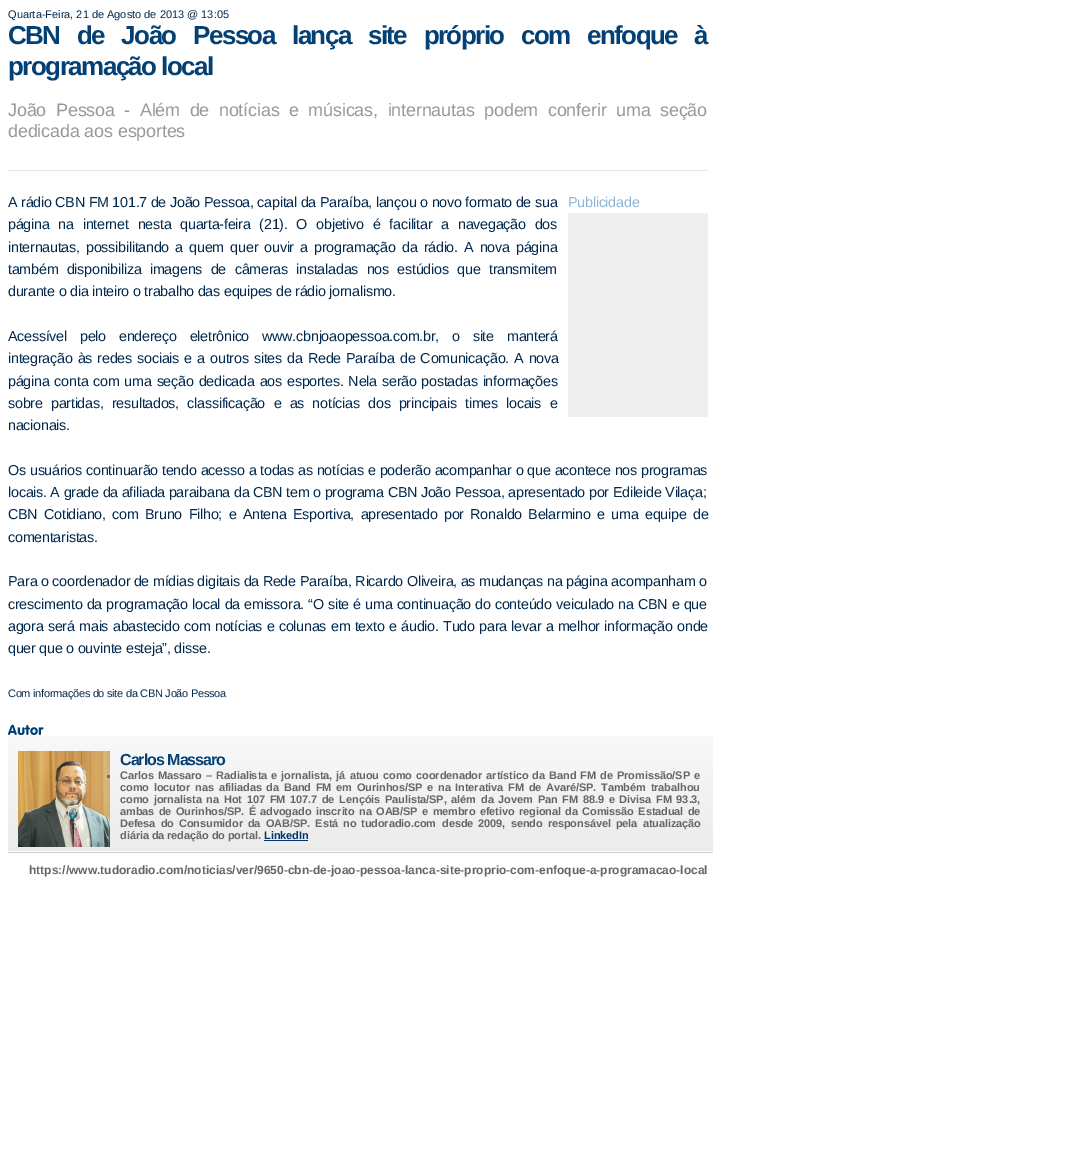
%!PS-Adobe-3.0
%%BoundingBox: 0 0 1079 1161
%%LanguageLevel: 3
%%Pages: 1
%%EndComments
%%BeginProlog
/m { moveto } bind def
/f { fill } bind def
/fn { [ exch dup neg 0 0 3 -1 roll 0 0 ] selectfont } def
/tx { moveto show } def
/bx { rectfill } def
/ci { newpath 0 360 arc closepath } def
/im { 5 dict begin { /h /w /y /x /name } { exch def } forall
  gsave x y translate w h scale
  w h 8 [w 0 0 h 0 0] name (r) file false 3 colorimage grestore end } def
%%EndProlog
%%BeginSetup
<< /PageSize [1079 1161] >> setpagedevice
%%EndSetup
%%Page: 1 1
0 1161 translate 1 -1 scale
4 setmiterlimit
1 setgray
0 0 1079 1161 bx
/LiberationSans-Regular 11 fn
0.008 0.161 0.302 setrgbcolor
(Quarta-Feira, 21 de Agosto de 2013 @ 13:05) 8 18 tx
/LiberationSans-Bold 26 fn
0.016 0.251 0.455 setrgbcolor
8 44 m 11.5 0 32 -1.55 0 (CBN de João Pessoa lança site próprio com enfoque à) awidthshow
8 75 m -1.55 0 (programação local) ashow
0.906 setgray
8 170 700 1 bx
/LiberationSans-Regular 18 fn
0.6 setgray
8 116 m 4.75 0 32 -0.18 0 (João Pessoa - Além de notícias e músicas, internautas podem conferir uma seção) awidthshow
8 137 m -0.18 0 (dedicada aos esportes) ashow
/LiberationSans-Regular 14.4 fn
0.008 0.161 0.302 setrgbcolor
8 207 m -0.29 0 (A rádio CBN FM 101.7 de João Pessoa, capital da Paraíba, lançou o novo formato de sua) ashow
8 229 m 5.25 0 32 -0.29 0 (página na internet nesta quarta-feira \(21\). O objetivo é facilitar a navegação dos) awidthshow
8 252 m 2.5 0 32 -0.29 0 (internautas, possibilitando a quem quer ouvir a programação da rádio. A nova página) awidthshow
8 274 m 4.75 0 32 -0.29 0 (também disponibiliza imagens de câmeras instaladas nos estúdios que transmitem) awidthshow
8 296 m -0.29 0 (durante o dia inteiro o trabalho das equipes de rádio jornalismo.) ashow
0.549 0.718 0.839 setrgbcolor
568 207 m -0.29 0 (Publicidade) ashow
0.937 setgray
568 213 140 204 bx
0.008 0.161 0.302 setrgbcolor
8 341 m 9.25 0 32 -0.29 0 (Acessível pelo endereço eletrônico www.cbnjoaopessoa.com.br, o site manterá) awidthshow
8 363 m 1.5 0 32 -0.29 0 (integração às redes sociais e a outros sites da Rede Paraíba de Comunicação. A nova) awidthshow
8 386 m 1.25 0 32 -0.29 0 (página conta com uma seção dedicada aos esportes. Nela serão postadas informações) awidthshow
8 408 m 4.6 0 32 -0.29 0 (sobre partidas, resultados, classificação e as notícias dos principais times locais e) awidthshow
8 430 m -0.29 0 (nacionais.) ashow
8 475 m 0.3 0 32 -0.29 0 (Os usuários continuarão tendo acesso a todas as notícias e poderão acompanhar o que acontece nos programas) awidthshow
8 497 m -0.29 0 (locais. A grade da afiliada paraibana da CBN tem o programa CBN João Pessoa, apresentado por Edileide Vilaça;) ashow
8 519 m 2.75 0 32 -0.29 0 (CBN Cotidiano, com Bruno Filho; e Antena Esportiva, apresentado por Ronaldo Belarmino e uma equipe de) awidthshow
8 542 m -0.29 0 (comentaristas.) ashow
8 586 m -0.29 0 (Para o coordenador de mídias digitais da Rede Paraíba, Ricardo Oliveira, as mudanças na página acompanham o) ashow
8 609 m 0.5 0 32 -0.29 0 (crescimento da programação local da emissora. “O site é uma continuação do conteúdo veiculado na CBN e que) awidthshow
8 631 m 0.75 0 32 -0.29 0 (agora será mais abastecido com notícias e colunas em texto e áudio. Tudo para levar a melhor informação onde) awidthshow
8 653 m -0.29 0 (quer que o ouvinte esteja”, disse.) ashow
/LiberationSans-Regular 11 fn
8 697 m -0.29 0 (Com informações do site da CBN João Pessoa) ashow
0.8 setgray
8 852 705 1 bx
(image0.raw) 8 724 36 11 im
(image1.raw) 8 736 705 115 im
(image2.raw) 18 751 92 96 im
/LiberationSans-Bold 16 fn
0.016 0.251 0.455 setrgbcolor
120 765 m -1 0 (Carlos Massaro) ashow
0.4 setgray
108.5 776.5 1.5 ci f
/LiberationSans-Bold 11 fn
120 779 m 1 0 32 -0.11 0 (Carlos Massaro) awidthshow
206 779 m 1.25 0 32 -0.11 0 (– Radialista e jornalista, já atuou como coordenador artístico da Band FM de Promissão/SP e) awidthshow
120 791 m 1.9 0 32 -0.11 0 (como locutor nas afiliadas da Band FM em Ourinhos/SP e na Interativa FM de Avaré/SP. Também trabalhou) awidthshow
120 803 m 1.9 0 32 -0.11 0 (como jornalista na Hot 107 FM 107.7 de Lençóis Paulista/SP, além da Jovem Pan FM 88.9 e Divisa FM 93.3,) awidthshow
120 815 m 1.5 0 32 -0.11 0 (ambas de Ourinhos/SP. É advogado inscrito na OAB/SP e membro efetivo regional da Comissão Estadual de) awidthshow
120 827 m 2.25 0 32 -0.11 0 (Defesa do Consumidor da OAB/SP. Está no) awidthshow
361 827 m -0.11 0 (tudoradio.com) ashow
442 827 m 2.25 0 32 -0.11 0 (desde 2009, sendo responsável pela atualização) awidthshow
120 839 m -0.11 0 (diária da redação do portal.) ashow
0 0.2 0.4 setrgbcolor
264 839 m -0.11 0 (LinkedIn) ashow
264 840 44 1 bx
/LiberationSans-Bold 12 fn
0.4 setgray
(https://www.tudoradio.com/noticias/ver/9650-cbn-de-joao-pessoa-lanca-site-proprio-com-enfoque-a-programacao-local) 29 874 tx
showpage
%%EOF
